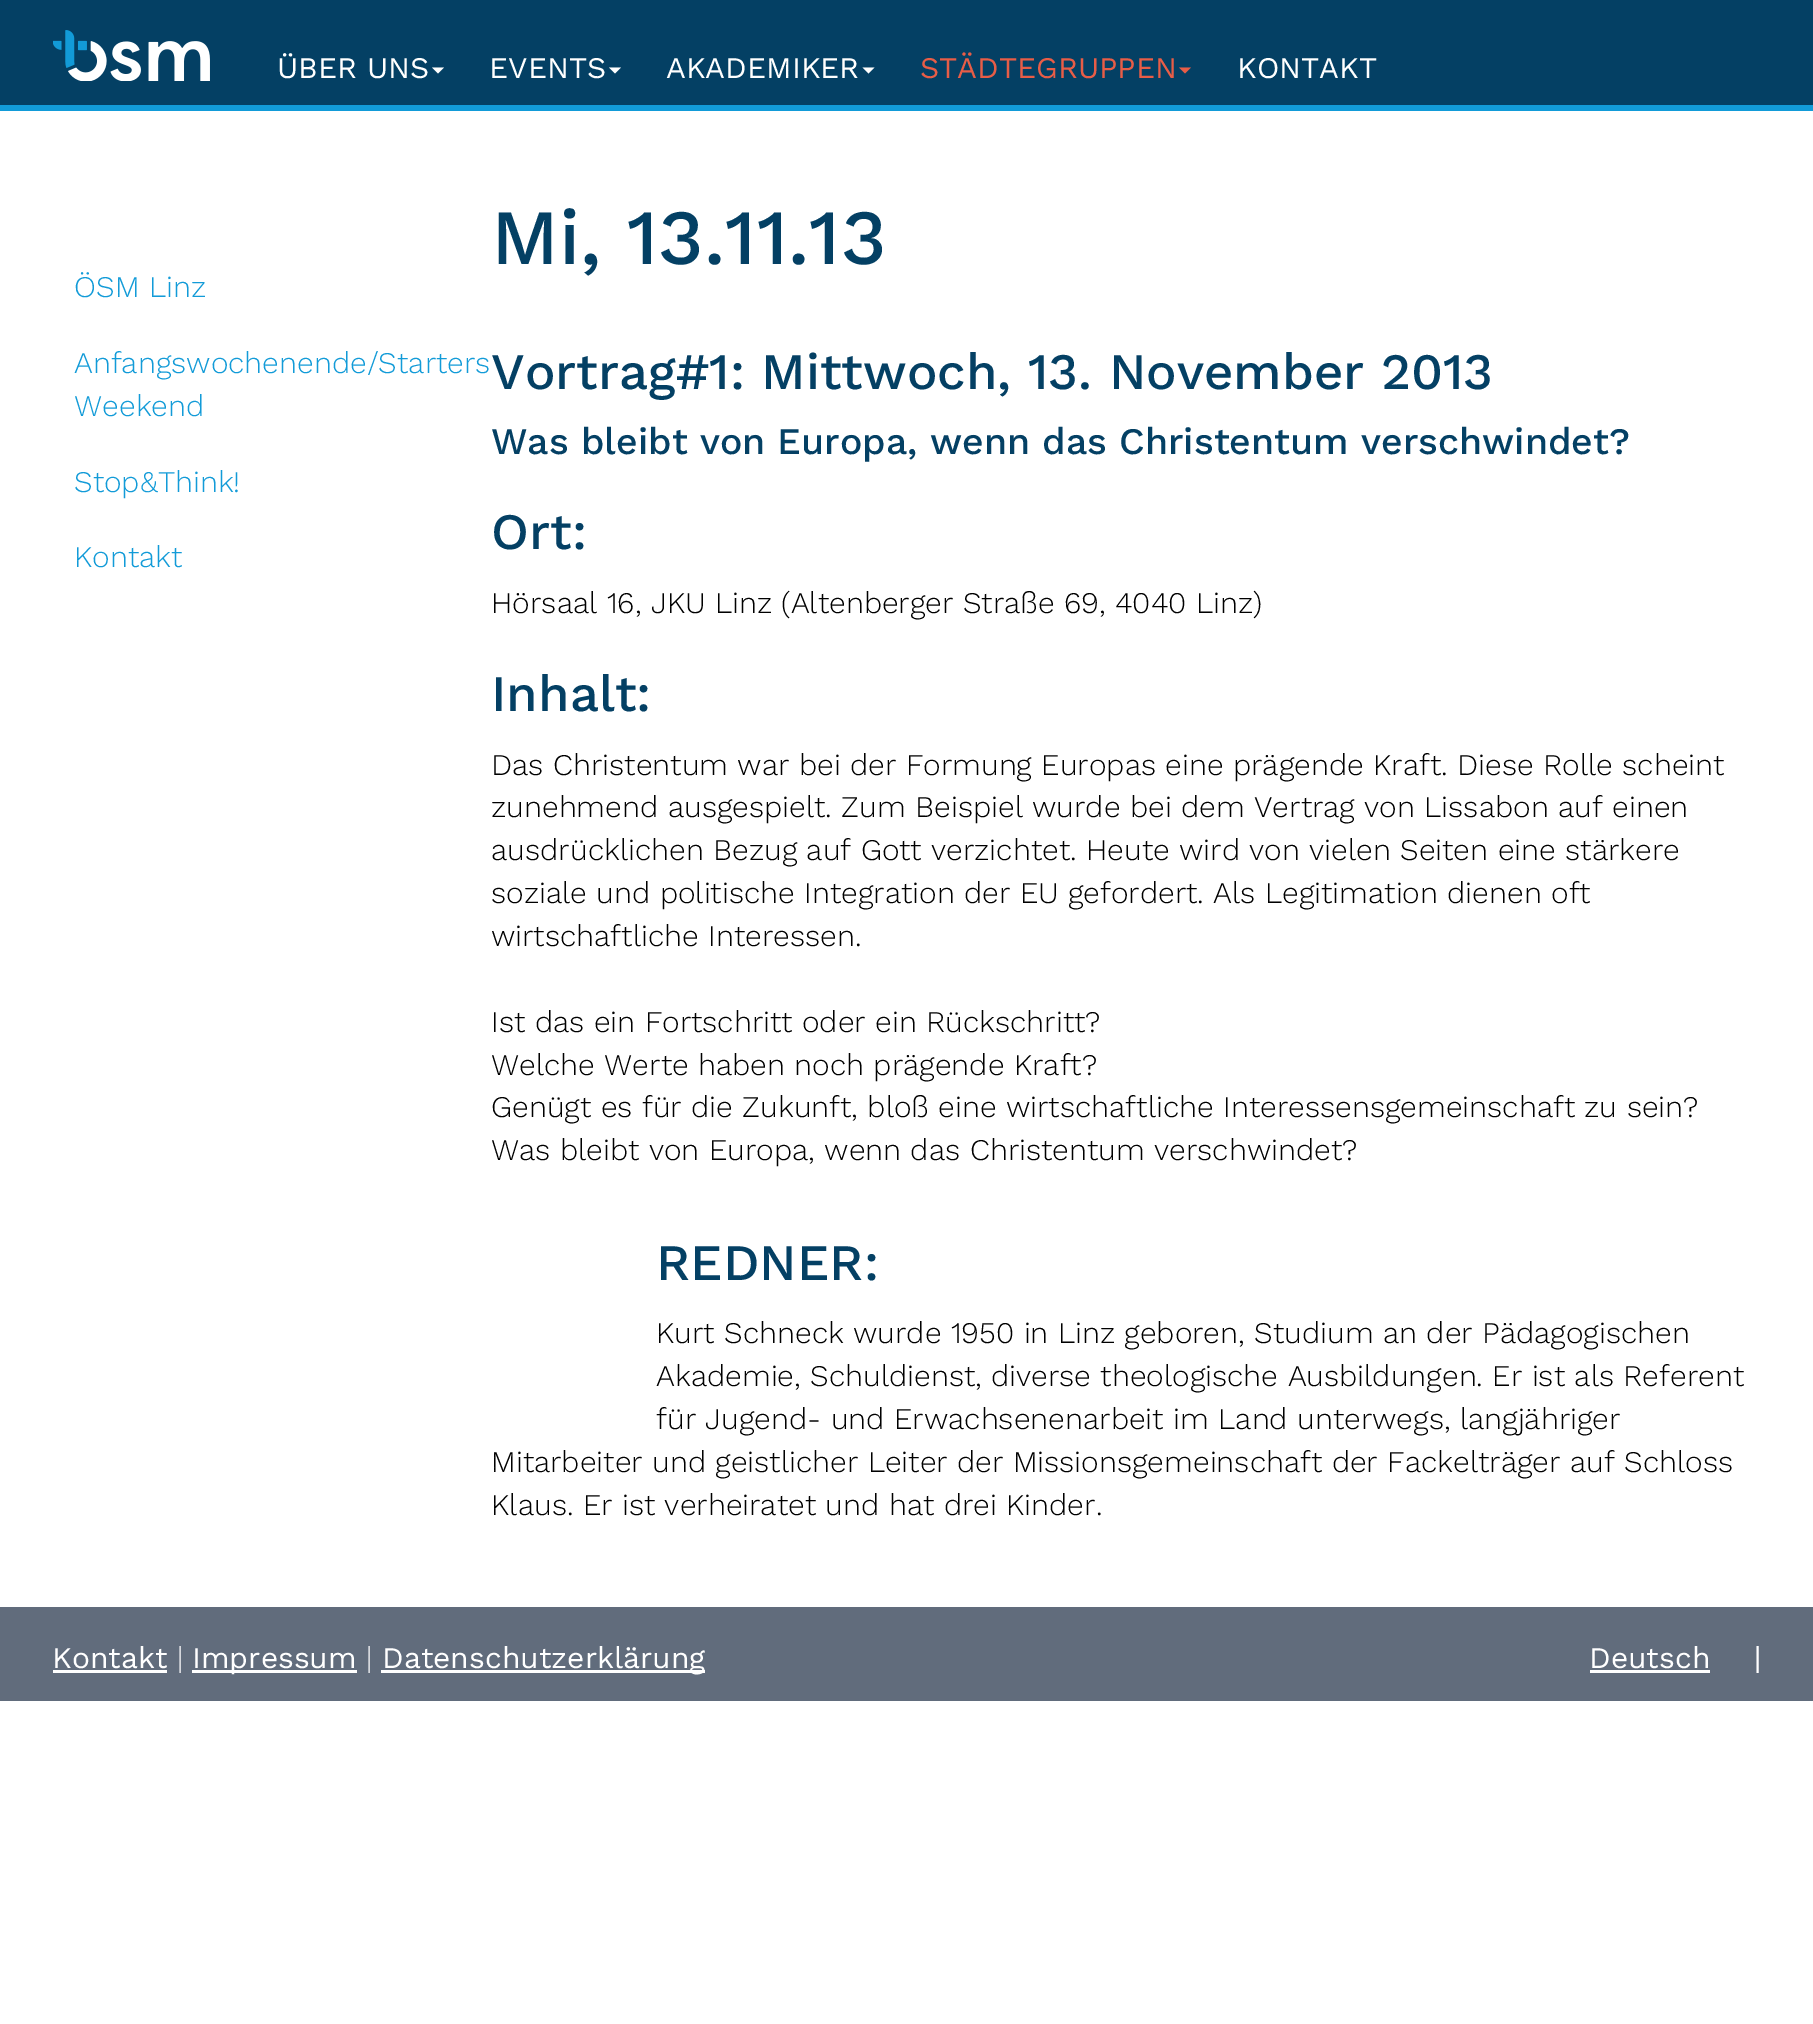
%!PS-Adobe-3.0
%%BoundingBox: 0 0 1813 2024
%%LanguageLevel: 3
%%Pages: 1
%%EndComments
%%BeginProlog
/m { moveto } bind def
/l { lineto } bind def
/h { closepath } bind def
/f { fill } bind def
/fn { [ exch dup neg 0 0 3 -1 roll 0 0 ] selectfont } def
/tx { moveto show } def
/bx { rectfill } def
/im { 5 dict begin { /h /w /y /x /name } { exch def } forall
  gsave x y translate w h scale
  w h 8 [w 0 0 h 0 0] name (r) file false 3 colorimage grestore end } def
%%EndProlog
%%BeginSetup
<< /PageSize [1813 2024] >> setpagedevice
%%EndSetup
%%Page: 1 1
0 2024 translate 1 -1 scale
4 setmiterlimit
1 setgray
0 0 1813 2024 bx
0.016 0.251 0.392 setrgbcolor
0 0 1813 105 bx
0.071 0.608 0.847 setrgbcolor
0 105 1813 6 bx
(image0.raw) 53 30 157 51 im
/WorkSans-Regular 30 fn
1 setgray
(ÜBER UNS) 277 78 tx
432 67.5 m 444 67.5 l 438 73.5 l h f
(EVENTS) 489 78 tx
609 67.5 m 621 67.5 l 615 73.5 l h f
(AKADEMIKER) 666 78 tx
862.5 67.5 m 874.5 67.5 l 868.5 73.5 l h f
0.91 0.365 0.278 setrgbcolor
(STÄDTEGRUPPEN) 920 78 tx
1179 67.5 m 1191 67.5 l 1185 73.5 l h f
1 setgray
(KONTAKT) 1237 78 tx
/WorkSans-Light 30 fn
0.071 0.608 0.847 setrgbcolor
(ÖSM Linz) 74 297 tx
(Anfangswochenende/Starters) 74 373 tx
(Weekend) 74 416 tx
(Stop&Think!) 74 492 tx
(Kontakt) 74 567 tx
/WorkSans-Medium 78 fn
0.016 0.251 0.392 setrgbcolor
(Mi, 13.11.13) 491 264 tx
/WorkSans-Medium 51 fn
(Vortrag#1: Mittwoch, 13. November 2013) 491 389 tx
/WorkSans-Medium 37.5 fn
(Was bleibt von Europa, wenn das Christentum verschwindet?) 491 454 tx
/WorkSans-Medium 51 fn
(Ort:) 491 549 tx
/WorkSans-Light 30 fn
0 setgray
(Hörsaal 16, JKU Linz \(Altenberger Straße 69, 4040 Linz\)) 491 613 tx
/WorkSans-Medium 51 fn
0.016 0.251 0.392 setrgbcolor
(Inhalt:) 491 711 tx
/WorkSans-Light 30 fn
0 setgray
(Das Christentum war bei der Formung Europas eine prägende Kraft. Diese Rolle scheint) 491 775 tx
(zunehmend ausgespielt. Zum Beispiel wurde bei dem Vertrag von Lissabon auf einen) 491 817 tx
(ausdrücklichen Bezug auf Gott verzichtet. Heute wird von vielen Seiten eine stärkere) 491 860 tx
(soziale und politische Integration der EU gefordert. Als Legitimation dienen oft) 491 903 tx
(wirtschaftliche Interessen.) 491 946 tx
(Ist das ein Fortschritt oder ein Rückschritt?) 491 1032 tx
(Welche Werte haben noch prägende Kraft?) 491 1075 tx
(Genügt es für die Zukunft, bloß eine wirtschaftliche Interessensgemeinschaft zu sein?) 491 1117 tx
(Was bleibt von Europa, wenn das Christentum verschwindet?) 491 1160 tx
/WorkSans-Medium 51 fn
0.016 0.251 0.392 setrgbcolor
(REDNER:) 656 1280 tx
/WorkSans-Light 30 fn
0 setgray
(Kurt Schneck wurde 1950 in Linz geboren, Studium an der Pädagogischen) 656 1343 tx
(Akademie, Schuldienst, diverse theologische Ausbildungen. Er ist als Referent) 656 1386 tx
(für Jugend- und Erwachsenenarbeit im Land unterwegs, langjähriger) 656 1429 tx
(Mitarbeiter und geistlicher Leiter der Missionsgemeinschaft der Fackelträger auf Schloss) 491 1472 tx
(Klaus. Er ist verheiratet und hat drei Kinder.) 491 1515 tx
0.38 0.424 0.486 setrgbcolor
0 1607 1813 94 bx
/WorkSans-Regular 30 fn
1 setgray
(Kontakt) 52 1668 tx
53 1670 114 3 bx
/WorkSans-Light 30 fn
(|) 177 1668 tx
192 1670 165 3 bx
/WorkSans-Regular 30 fn
(Impressum) 192 1668 tx
/WorkSans-Light 30 fn
(|) 366 1668 tx
381 1670 324 3 bx
/WorkSans-Regular 30 fn
(Datenschutzerklärung) 382 1668 tx
(Deutsch) 1589 1668 tx
1590 1670 120 3 bx
(|) 1754 1668 tx
showpage
%%EOF
